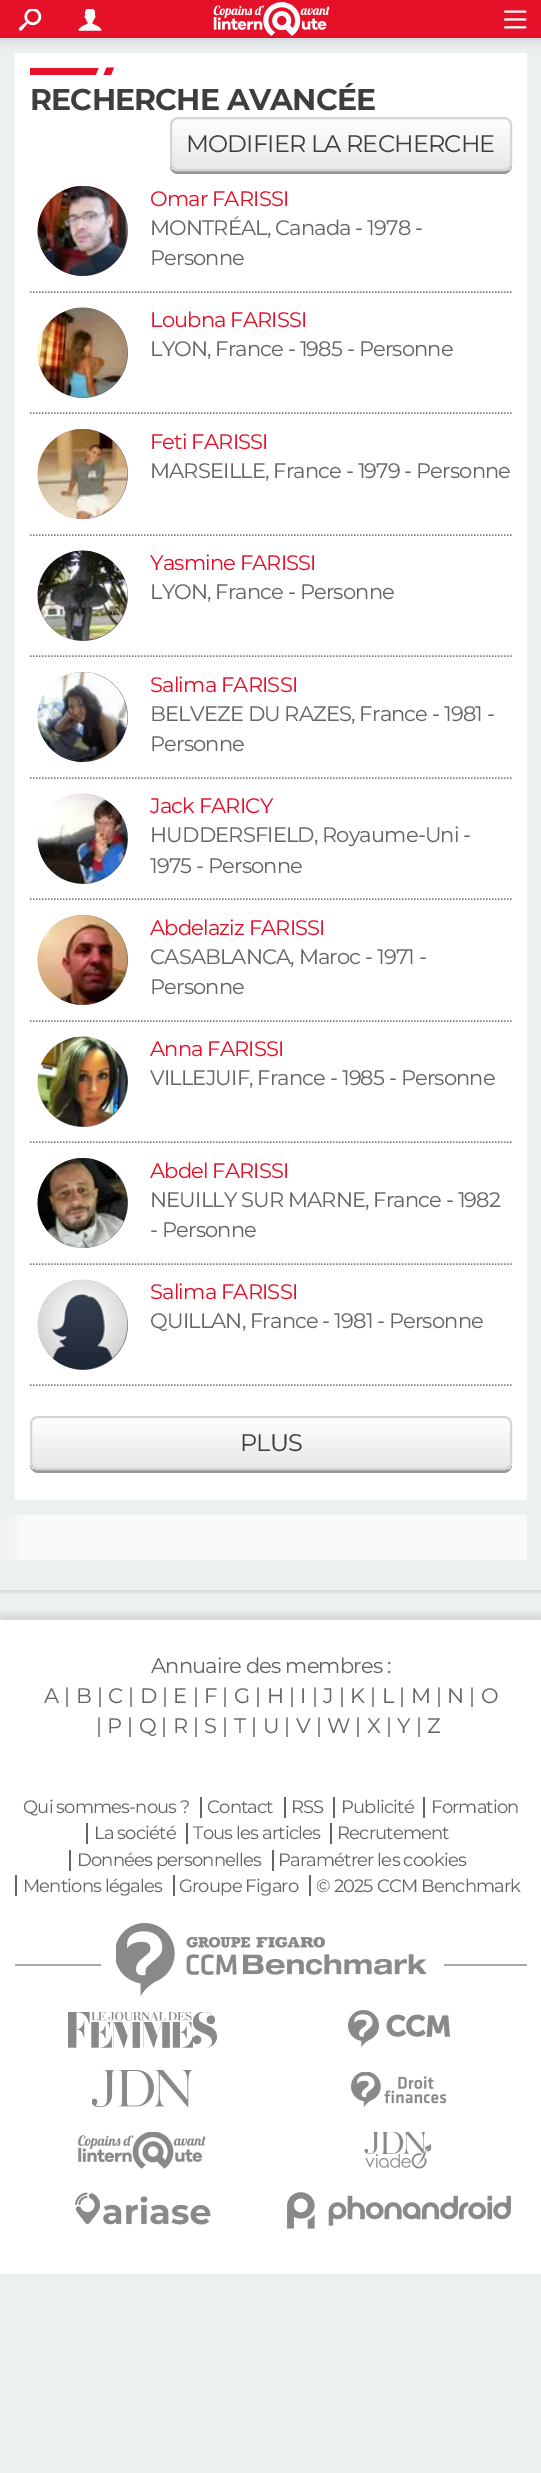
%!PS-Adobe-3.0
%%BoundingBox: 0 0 541 2473
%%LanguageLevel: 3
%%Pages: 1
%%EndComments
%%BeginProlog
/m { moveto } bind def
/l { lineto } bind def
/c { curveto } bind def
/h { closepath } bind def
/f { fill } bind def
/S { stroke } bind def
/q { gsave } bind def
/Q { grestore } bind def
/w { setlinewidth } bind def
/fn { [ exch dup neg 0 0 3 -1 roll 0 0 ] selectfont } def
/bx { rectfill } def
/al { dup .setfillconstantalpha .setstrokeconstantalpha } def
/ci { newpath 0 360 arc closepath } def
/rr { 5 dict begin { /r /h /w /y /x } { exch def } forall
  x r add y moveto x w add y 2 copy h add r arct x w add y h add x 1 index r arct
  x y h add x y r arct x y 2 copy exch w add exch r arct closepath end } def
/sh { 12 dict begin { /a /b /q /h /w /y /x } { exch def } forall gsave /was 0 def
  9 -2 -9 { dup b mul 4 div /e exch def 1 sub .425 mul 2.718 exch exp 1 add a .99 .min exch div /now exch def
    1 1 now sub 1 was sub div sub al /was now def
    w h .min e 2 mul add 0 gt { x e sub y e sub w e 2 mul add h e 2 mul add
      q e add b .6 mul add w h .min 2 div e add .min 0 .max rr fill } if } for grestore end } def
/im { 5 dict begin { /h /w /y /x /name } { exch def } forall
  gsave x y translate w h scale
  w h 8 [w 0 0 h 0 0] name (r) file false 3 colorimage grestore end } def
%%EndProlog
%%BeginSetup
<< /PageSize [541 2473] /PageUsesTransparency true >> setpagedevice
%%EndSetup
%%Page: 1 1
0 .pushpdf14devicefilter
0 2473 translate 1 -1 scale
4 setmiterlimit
0.929 0.941 0.941 setrgbcolor
0 0 541 2473 bx
0.98 setgray
23 1515 504 45 bx
q
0 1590 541 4 rectclip
0 setgray
0 38 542 1552 0 3 0.2 sh
Q
1 setgray
15 53 512 1447 bx
0 setgray
0 0 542 38 0 6 0.2 sh
0.894 0.067 0.161 setrgbcolor
0 0 541 38 bx
(image0.raw) 18 9 24 22 im
(image1.raw) 78 9 24 22 im
(image2.raw) 213 2 117 34 im
(image3.raw) 504 10 23 19 im
30 68 75 7 bx
1 setgray
99 67.5 m 114 67.5 l 111 75 l 96 75 l h f
0.894 0.067 0.161 setrgbcolor
106.5 67.5 m 114 67.5 l 111 75 l 103.5 75 l h f
/Montserrat-Bold 30 fn
0.247 0.243 0.243 setrgbcolor
30 110 m -0.85 0 (RECHERCHE AVANCÉE) ashow
0.6 setgray
170 166 m 170 171 174 174 178 174 c 504 174 l 508 174 512 170 512 166 c 512 128 l 512 125 l 512 164 l 512 168 508 171 504 171 c 177 171 l 174 171 171 169 170 166 c h f
q
170 117 342 54 8 rr clip newpath
q 170 119 m 512 119 l 512 170 l 170 170 l h clip newpath
<< /ShadingType 2 /ColorSpace /DeviceRGB /Coords [341 118 341 170] /Extend [true true] /Function << /FunctionType 2 /Domain [0 1] /C0 [1 1 1] /C1 [0.906 0.906 0.906] /N 1 >> >> shfill Q
Q
0.835 setgray
2 w
171 118 340 52 7 rr S
/Montserrat-Regular 24 fn
0.247 0.243 0.243 setrgbcolor
186 152 m -0.85 0 (MODIFIER LA RECHERCHE) ashow
0.498 setgray
1.5 w
[1.5 1.5] 0 setdash
30 292 m 511.5 292 l S
0.4 setgray
83 231 45 ci f
(image4.raw) 37 186 91 90 im
/Montserrat-Regular 21 fn
0.894 0.067 0.161 setrgbcolor
150 206 m -0.85 0 (Omar FARISSI) ashow
0.4 setgray
150 235 m -0.85 0 (MONTRÉAL, Canada - 1978 -) ashow
150 265 m -0.85 0 (Personne) ashow
0.498 setgray
30 413 m 511.5 413 l S
0.4 setgray
83 353 45 ci f
(image5.raw) 37 307 91 91 im
0.894 0.067 0.161 setrgbcolor
150 327 m -0.85 0 (Loubna FARISSI) ashow
0.4 setgray
150 356 m -0.85 0 (LYON, France - 1985 - Personne) ashow
0.498 setgray
30 535 m 511.5 535 l S
0.4 setgray
83 474 45 ci f
(image6.raw) 37 429 91 90 im
0.894 0.067 0.161 setrgbcolor
150 449 m -0.85 0 (Feti FARISSI) ashow
0.4 setgray
150 478 m -0.85 0 (MARSEILLE, France - 1979 - Personne) ashow
0.498 setgray
30 656 m 511.5 656 l S
0.4 setgray
83 596 45 ci f
(image7.raw) 37 550 91 91 im
0.894 0.067 0.161 setrgbcolor
150 570 m -0.85 0 (Yasmine FARISSI) ashow
0.4 setgray
150 599 m -0.85 0 (LYON, France - Personne) ashow
0.498 setgray
30 778 m 511.5 778 l S
0.4 setgray
83 717 45 ci f
(image8.raw) 37 672 91 90 im
0.894 0.067 0.161 setrgbcolor
150 692 m -0.85 0 (Salima FARISSI) ashow
0.4 setgray
150 721 m -0.85 0 (BELVEZE DU RAZES, France - 1981 -) ashow
150 751 m -0.85 0 (Personne) ashow
0.498 setgray
30 899 m 511.5 899 l S
0.4 setgray
83 839 45 ci f
(image9.raw) 37 793 91 91 im
0.894 0.067 0.161 setrgbcolor
150 813 m -0.85 0 (Jack FARICY) ashow
0.4 setgray
150 842 m -0.85 0 (HUDDERSFIELD, Royaume-Uni -) ashow
150 873 m -0.85 0 (1975 - Personne) ashow
0.498 setgray
30 1021 m 511.5 1021 l S
0.4 setgray
83 960 45 ci f
(image10.raw) 37 915 91 90 im
0.894 0.067 0.161 setrgbcolor
150 935 m -0.85 0 (Abdelaziz FARISSI) ashow
0.4 setgray
150 964 m -0.85 0 (CASABLANCA, Maroc - 1971 -) ashow
150 994 m -0.85 0 (Personne) ashow
0.498 setgray
30 1142 m 511.5 1142 l S
0.4 setgray
83 1082 45 ci f
(image11.raw) 37 1036 91 91 im
0.894 0.067 0.161 setrgbcolor
150 1056 m -0.85 0 (Anna FARISSI) ashow
0.4 setgray
150 1085 m -0.85 0 (VILLEJUIF, France - 1985 - Personne) ashow
0.498 setgray
30 1264 m 511.5 1264 l S
0.4 setgray
83 1203 45 ci f
(image12.raw) 37 1158 91 90 im
0.894 0.067 0.161 setrgbcolor
150 1178 m -0.85 0 (Abdel FARISSI) ashow
0.4 setgray
150 1207 m -0.85 0 (NEUILLY SUR MARNE, France - 1982) ashow
150 1237 m -0.85 0 (- Personne) ashow
0.498 setgray
30 1385 m 511.5 1385 l S
0.4 setgray
83 1325 45 ci f
(image13.raw) 37 1279 91 91 im
0.894 0.067 0.161 setrgbcolor
150 1299 m -0.85 0 (Salima FARISSI) ashow
0.4 setgray
150 1328 m -0.85 0 (QUILLAN, France - 1981 - Personne) ashow
0.6 setgray
30 1462 m 30 1465 l 30 1469 34 1473 38 1473 c 504 1473 l 508 1473 512 1469 512 1465 c 512 1427 l 512 1424 l 512 1462 l 512 1467 508 1470 504 1470 c 38 1470 l 33 1470 30 1467 30 1462 c h f
q
30 1416 482 54 8 rr clip newpath
q 30 1418 m 512 1418 l 512 1469 l 30 1469 l h clip newpath
<< /ShadingType 2 /ColorSpace /DeviceRGB /Coords [271 1418 271 1469] /Extend [true true] /Function << /FunctionType 2 /Domain [0 1] /C0 [1 1 1] /C1 [0.906 0.906 0.906] /N 1 >> >> shfill Q
Q
0.835 setgray
2 w
[] 0 setdash
31 1417 480 52 7 rr S
/Montserrat-Regular 24 fn
0.247 0.243 0.243 setrgbcolor
240 1451 m -0.85 0 (PLUS) ashow
q 0 1515 m 23 1515 l 23 1560 l 0 1560 l h clip newpath
<< /ShadingType 2 /ColorSpace /DeviceRGB /Coords [0 1538 23 1538] /Extend [true true] /Function << /FunctionType 2 /Domain [0 1] /C0 [0.941 0.941 0.941] /C1 [0.98 0.98 0.98] /N 1 >> >> shfill Q
1 setgray
0 1749 541 525 bx
0 setgray
0 1614 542 129 0 3 0.1 sh
1 setgray
0 1620 541 129 bx
/Montserrat-Regular 21 fn
0.4 setgray
151 1673 m -0.85 0 (Annuaire des membres :) ashow
44 1703 m -0.85 0 (A) ashow
64 1703 m -0.85 0 (|) ashow
76 1703 m -0.85 0 (B) ashow
97 1703 m -0.85 0 (|) ashow
108 1703 m -0.85 0 (C) ashow
128 1703 m -0.85 0 (|) ashow
140 1703 m -0.85 0 (D) ashow
162 1703 m -0.85 0 (|) ashow
173 1703 m -0.85 0 (E) ashow
193 1703 m -0.85 0 (|) ashow
204 1703 m -0.85 0 (F) ashow
222 1703 m -0.85 0 (|) ashow
234 1703 m -0.85 0 (G) ashow
255 1703 m -0.85 0 (|) ashow
267 1703 m -0.85 0 (H) ashow
289 1703 m -0.85 0 (|) ashow
300 1703 m -0.85 0 (I) ashow
312 1703 m -0.85 0 (|) ashow
323 1703 m -0.85 0 (J) ashow
339 1703 m -0.85 0 (|) ashow
350 1703 m -0.85 0 (K) ashow
370 1703 m -0.85 0 (|) ashow
382 1703 m -0.85 0 (L) ashow
399 1703 m -0.85 0 (|) ashow
411 1703 m -0.85 0 (M) ashow
436 1703 m -0.85 0 (|) ashow
447 1703 m -0.85 0 (N) ashow
469 1703 m -0.85 0 (|) ashow
481 1703 m -0.85 0 (O) ashow
96 1733 m -0.85 0 (|) ashow
107 1733 m -0.85 0 (P) ashow
127 1733 m -0.85 0 (|) ashow
139 1733 m -0.85 0 (Q) ashow
161 1733 m -0.85 0 (|) ashow
173 1733 m -0.85 0 (R) ashow
193 1733 m -0.85 0 (|) ashow
204 1733 m -0.85 0 (S) ashow
222 1733 m -0.85 0 (|) ashow
234 1733 m -0.85 0 (T) ashow
251 1733 m -0.85 0 (|) ashow
263 1733 m -0.85 0 (U) ashow
284 1733 m -0.85 0 (|) ashow
296 1733 m -0.85 0 (V) ashow
316 1733 m -0.85 0 (|) ashow
327 1733 m -0.85 0 (W) ashow
355 1733 m -0.85 0 (|) ashow
367 1733 m -0.85 0 (X) ashow
386 1733 m -0.85 0 (|) ashow
397 1733 m -0.85 0 (Y) ashow
416 1733 m -0.85 0 (|) ashow
427 1733 m -0.85 0 (Z) ashow
/Montserrat-Regular 18 fn
23 1813 m -0.85 0 (Qui sommes-nous ?) ashow
200 1797 2 21 bx
207 1813 m -0.85 0 (Contact) ashow
284 1797 2 21 bx
291 1813 m -0.85 0 (RSS) ashow
333 1797 2 21 bx
341 1813 m -0.85 0 (Publicité) ashow
423 1797 2 21 bx
431 1813 m -0.85 0 (Formation) ashow
86 1823 2 21 bx
94 1839 m -0.85 0 (La société) ashow
186 1823 2 21 bx
193 1839 m -0.85 0 (Tous les articles) ashow
330 1823 2 21 bx
337 1839 m -0.85 0 (Recrutement) ashow
69 1850 2 21 bx
77 1866 m -0.85 0 (Données personnelles) ashow
272 1850 2 21 bx
278 1866 m -0.85 0 (Paramétrer les cookies) ashow
15 1875 2 21 bx
23 1892 m -0.85 0 (Mentions légales) ashow
173 1875 2 21 bx
179 1892 m -0.85 0 (Groupe Figaro) ashow
309 1875 2 21 bx
316 1892 m -0.85 0 (© 2025 CCM Benchmark) ashow
0.659 setgray
15 1964 512 2 bx
1 setgray
101 1964 343 2 bx
(image14.raw) 116 1923 311 74 im
(image15.raw) 68 2012 149 36 im
(image16.raw) 348 2010 102 38 im
(image17.raw) 92 2070 101 38 im
(image18.raw) 351 2072 96 36 im
(image19.raw) 78 2132 128 37 im
(image20.raw) 364 2132 68 37 im
(image21.raw) 75 2192 136 33 im
(image22.raw) 287 2192 224 37 im
.poppdf14devicefilter showpage
%%EOF
